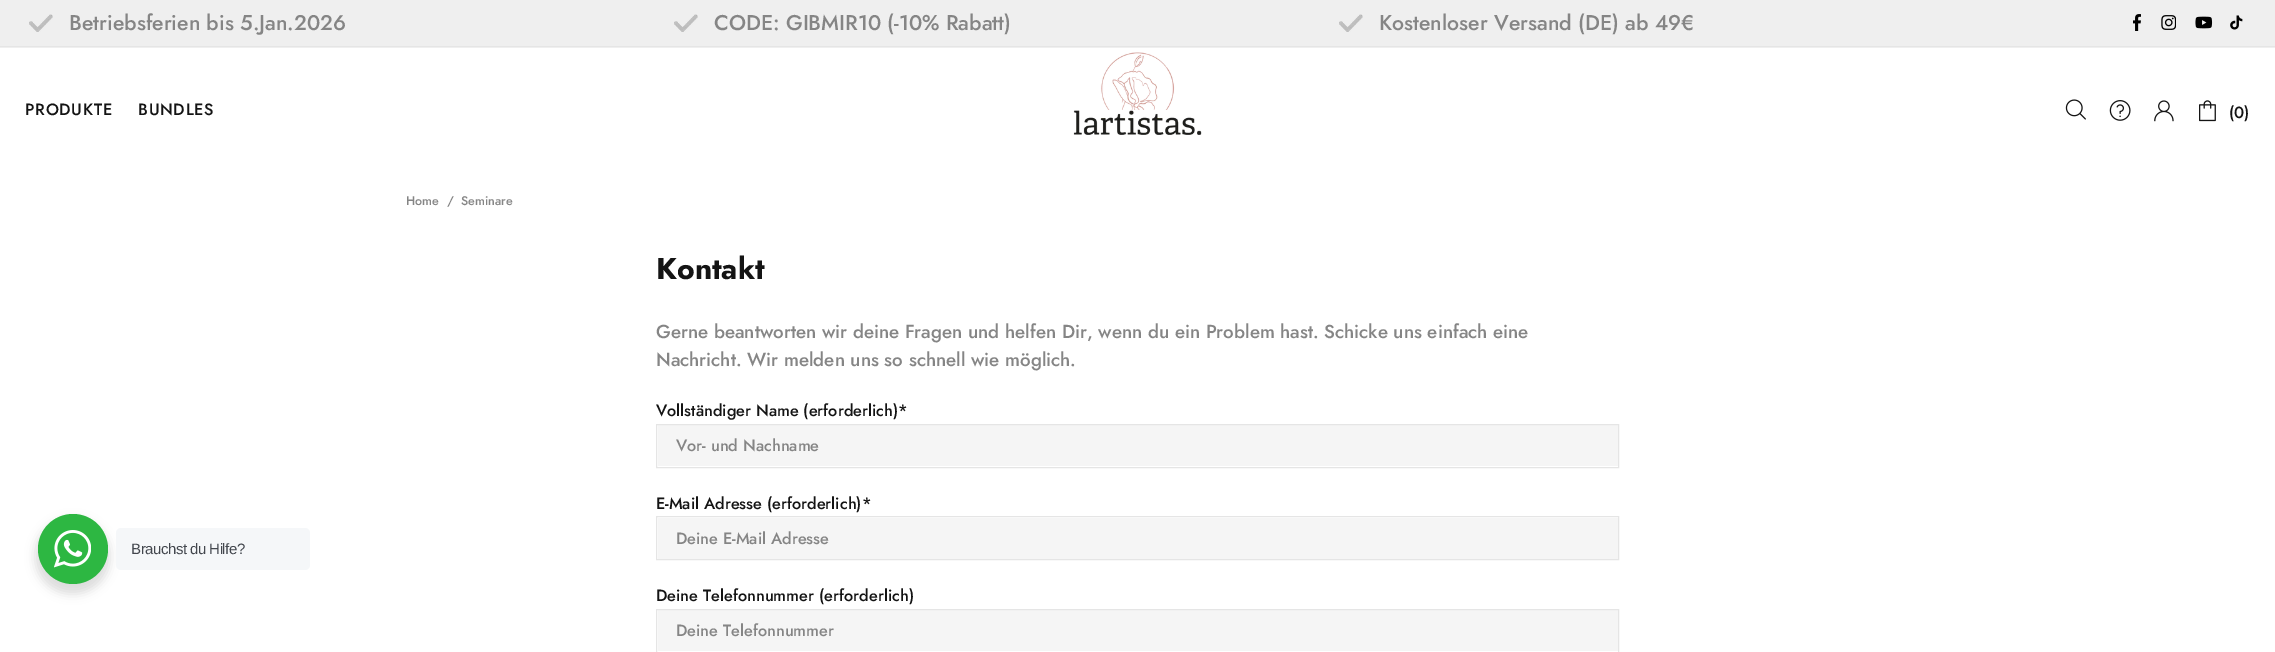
%!PS-Adobe-3.0
%%BoundingBox: 0 0 2275 652
%%LanguageLevel: 3
%%Pages: 1
%%EndComments
%%BeginProlog
/m { moveto } bind def
/f { fill } bind def
/fn { [ exch dup neg 0 0 3 -1 roll 0 0 ] selectfont } def
/tx { moveto show } def
/bx { rectfill } def
/al { dup .setfillconstantalpha .setstrokeconstantalpha } def
/ci { newpath 0 360 arc closepath } def
/rr { 5 dict begin { /r /h /w /y /x } { exch def } forall
  x r add y moveto x w add y 2 copy h add r arct x w add y h add x 1 index r arct
  x y h add x y r arct x y 2 copy exch w add exch r arct closepath end } def
/sh { 12 dict begin { /a /b /q /h /w /y /x } { exch def } forall gsave /was 0 def
  9 -2 -9 { dup b mul 4 div /e exch def 1 sub .425 mul 2.718 exch exp 1 add a .99 .min exch div /now exch def
    1 1 now sub 1 was sub div sub al /was now def
    w h .min e 2 mul add 0 gt { x e sub y e sub w e 2 mul add h e 2 mul add
      q e add b .6 mul add w h .min 2 div e add .min 0 .max rr fill } if } for grestore end } def
/im { 5 dict begin { /h /w /y /x /name } { exch def } forall
  gsave x y translate w h scale
  w h 8 [w 0 0 h 0 0] name (r) file false 3 colorimage grestore end } def
%%EndProlog
%%BeginSetup
<< /PageSize [2275 652] /PageUsesTransparency true >> setpagedevice
%%EndSetup
%%Page: 1 1
0 .pushpdf14devicefilter
0 652 translate 1 -1 scale
4 setmiterlimit
1 setgray
0 0 2275 652 bx
0.937 setgray
0 0 2275 48 bx
0.898 setgray
0 46 2275 1 bx
(image0.raw) 29 14 24 18 im
/Jost-Medium 21.25 fn
0.522 setgray
(Betriebsferien bis 5.Jan.2026) 69 30 tx
(image0.raw) 674 14 24 18 im
(CODE: GIBMIR10 \(-10% Rabatt\)) 714 30 tx
(image1.raw) 1339 14 24 18 im
(Kostenloser Versand \(DE\) ab 49€) 1379 30 tx
(image2.raw) 2133 14 8 17 im
(image3.raw) 2161 15 15 15 im
(image4.raw) 2195 16 18 13 im
(image5.raw) 2230 15 13 15 im
/Jost-Medium 16.25 fn
0.078 setgray
25 115 m 0.75 0 (PRODUKTE) ashow
138 115 m 0.75 0 (BUNDLES) ashow
(image6.raw) 1073 52 129 83 im
(image7.raw) 2065 99 21 21 im
(image8.raw) 2109 100 22 21 im
(image9.raw) 2154 100 20 22 im
(image10.raw) 2199 100 17 22 im
(\(0\)) 2229 118 tx
0 setgray
35 519 75 75 37.5 5 0.14 sh
0.176 0.718 0.259 setrgbcolor
73 549 35 ci f
(image11.raw) 54 530 37 38 im
0.961 0.969 0.976 setrgbcolor
116 528 194 42 5 rr f
/LiberationSans-Regular 15 fn
0.263 0.278 0.306 setrgbcolor
131 554 m -0.5 0 (Brauchst du Hilfe?) ashow
/Jost-Medium 12.5 fn
0.522 setgray
(Home) 406 205 tx
(/) 447 205 tx
(Seminare) 461 205 tx
/Jost-Bold 30 fn
0.078 setgray
(Kontakt) 656 279 tx
/Jost-Medium 18.75 fn
0.522 setgray
(Gerne beantworten wir deine Fragen und helfen Dir, wenn du ein Problem hast. Schicke uns einfach eine) 656 338 tx
(Nachricht. Wir melden uns so schnell wie möglich.) 656 366 tx
/Jost-Medium 16.25 fn
0.078 setgray
(Vollständiger Name \(erforderlich\)*) 656 416 tx
0.961 setgray
658 425 960 41 bx
0.898 setgray
656.5 424.5 962 43 rectstroke
0.522 setgray
(Vor- und Nachname) 676 451 tx
0.078 setgray
(E-Mail Adresse \(erforderlich\)*) 656 509 tx
0.961 setgray
658 518 960 41 bx
0.898 setgray
656.5 516.5 962 43 rectstroke
0.522 setgray
(Deine E-Mail Adresse) 676 544 tx
0.078 setgray
(Deine Telefonnummer \(erforderlich\)) 656 601 tx
0.961 setgray
658 610 960 41 bx
0.898 setgray
656.5 609.5 962 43 rectstroke
0.522 setgray
(Deine Telefonnummer) 676 636 tx
.poppdf14devicefilter showpage
%%EOF
